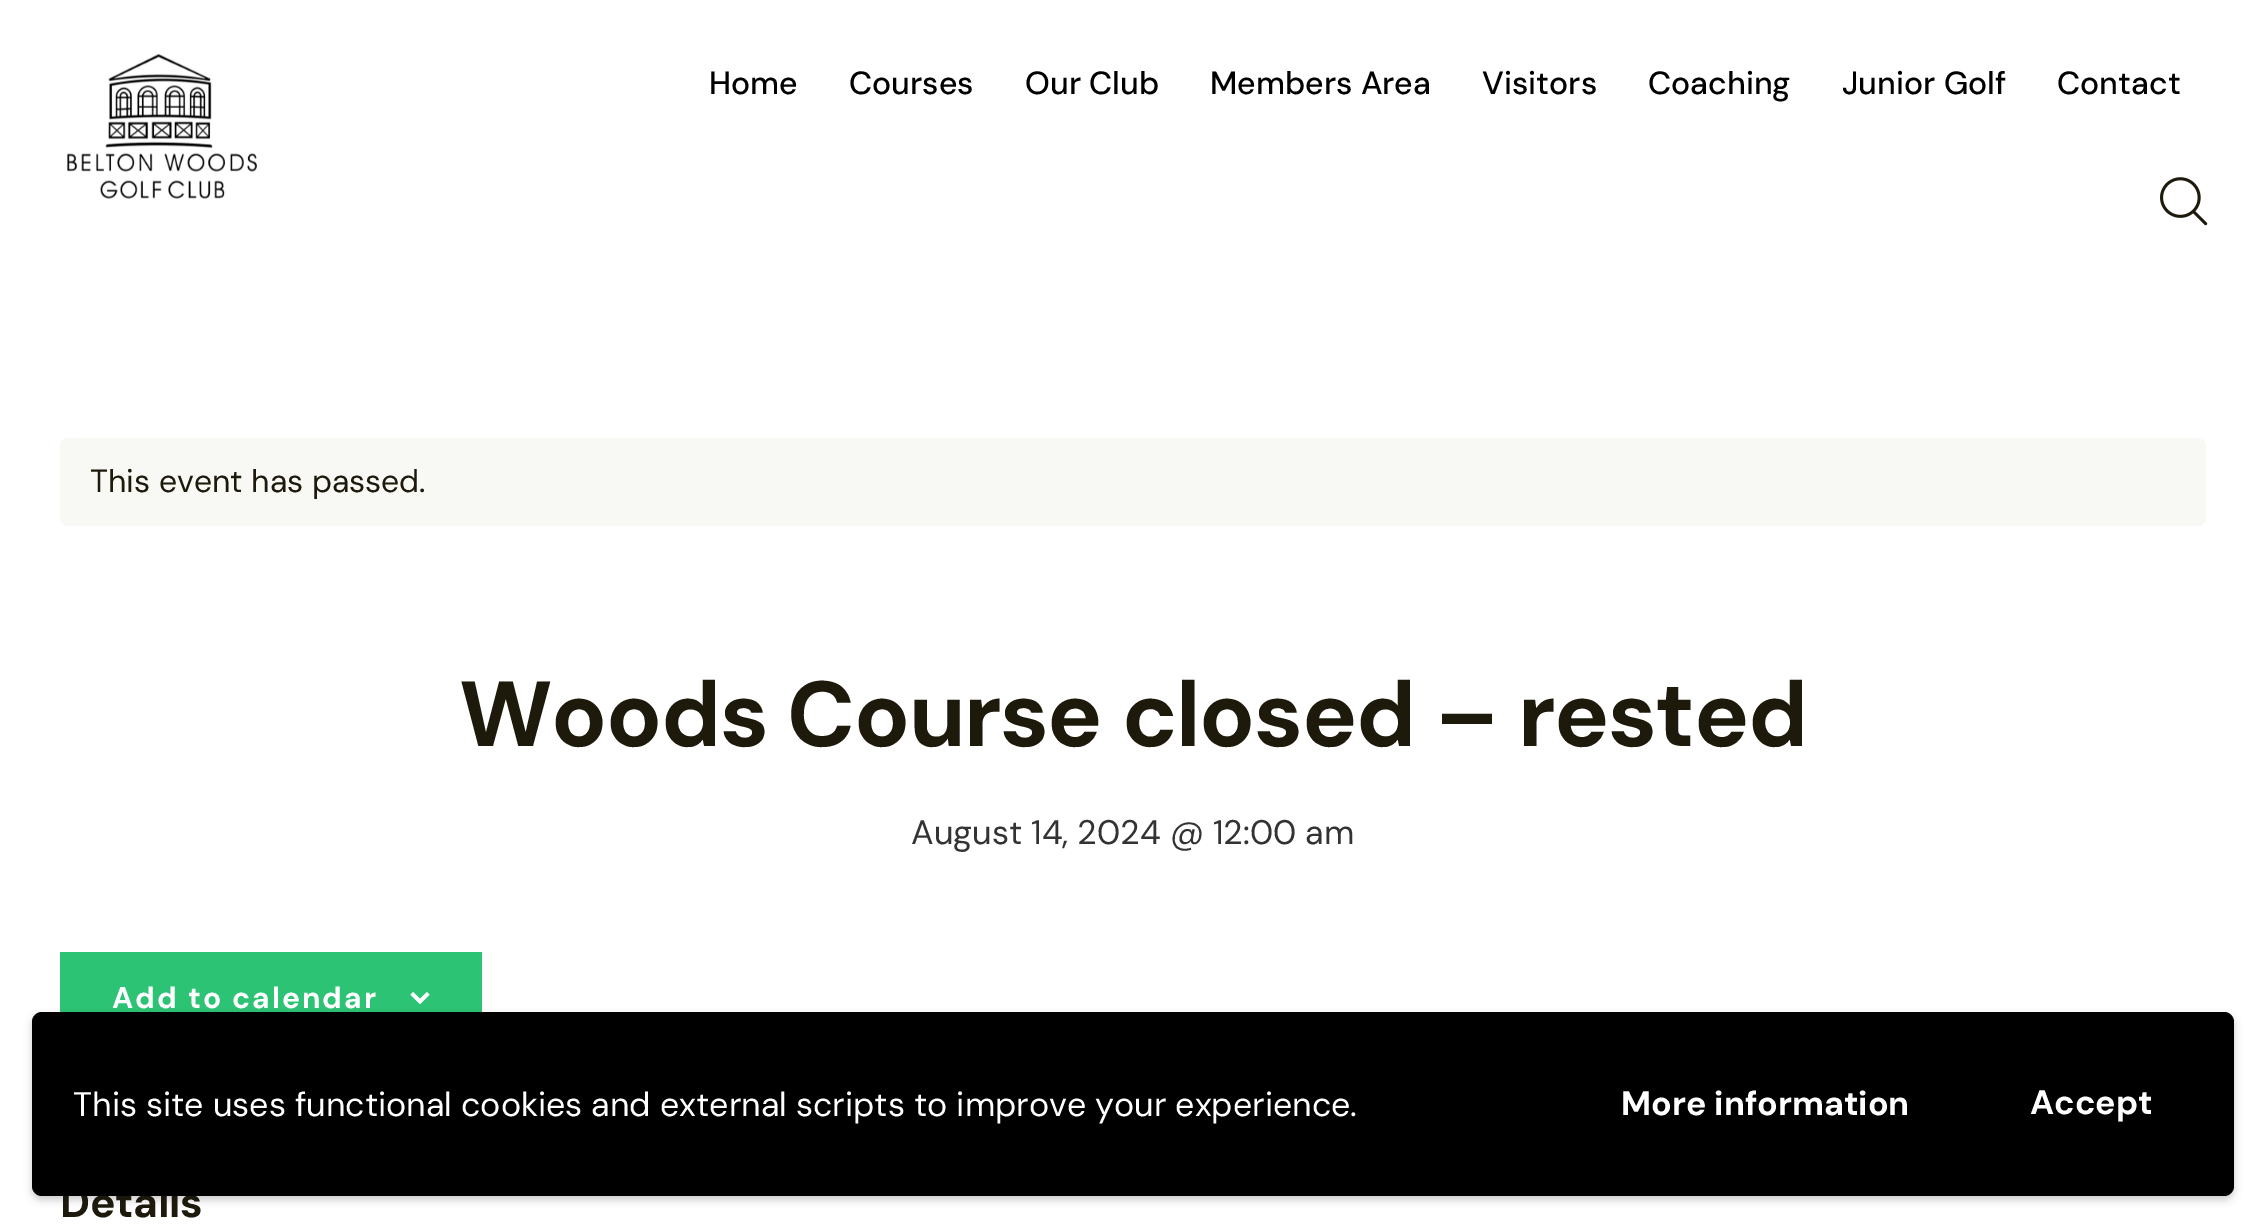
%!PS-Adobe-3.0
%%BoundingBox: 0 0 2266 1228
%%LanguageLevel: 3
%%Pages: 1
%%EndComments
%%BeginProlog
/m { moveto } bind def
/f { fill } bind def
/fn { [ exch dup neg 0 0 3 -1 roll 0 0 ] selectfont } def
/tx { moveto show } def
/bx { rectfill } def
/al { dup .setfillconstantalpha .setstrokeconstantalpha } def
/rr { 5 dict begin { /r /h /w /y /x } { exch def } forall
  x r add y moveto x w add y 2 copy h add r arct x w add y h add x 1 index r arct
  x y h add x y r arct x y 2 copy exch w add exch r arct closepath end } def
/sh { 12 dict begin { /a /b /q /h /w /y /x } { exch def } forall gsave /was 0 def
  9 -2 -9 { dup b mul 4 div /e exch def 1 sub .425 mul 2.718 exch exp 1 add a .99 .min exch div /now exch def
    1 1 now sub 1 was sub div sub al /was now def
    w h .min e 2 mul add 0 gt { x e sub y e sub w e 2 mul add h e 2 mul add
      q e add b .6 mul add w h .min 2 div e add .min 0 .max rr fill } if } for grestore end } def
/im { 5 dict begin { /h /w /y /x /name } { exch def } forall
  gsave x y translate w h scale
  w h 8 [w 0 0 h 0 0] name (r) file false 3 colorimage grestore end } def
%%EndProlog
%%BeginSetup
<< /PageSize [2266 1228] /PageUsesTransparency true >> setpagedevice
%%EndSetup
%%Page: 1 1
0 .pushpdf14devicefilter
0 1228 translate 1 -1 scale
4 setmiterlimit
1 setgray
0 0 2266 1228 bx
(image0.raw) 67 54 190 145 im
/DMSans-Medium 32 fn
0 setgray
(Home) 709 94 tx
(Courses) 849 94 tx
(Our Club) 1025 94 tx
(Members Area) 1210 94 tx
(Visitors) 1482 94 tx
(Coaching) 1648 94 tx
(Junior Golf) 1842 94 tx
(Contact) 2057 94 tx
(image1.raw) 2160 177 48 49 im
0.973 0.973 0.957 setrgbcolor
60 438 2146 88 8 rr f
/DMSans-Regular 32 fn
0.114 0.102 0.047 setrgbcolor
(This event has passed.) 90 492 tx
/DMSans-Bold 92 fn
459 746 m -1.4 0 (Woods Course closed – rested) ashow
/DMSans-Regular 34 fn
0.2 setgray
(August 14, 2024 @ 12:00 am) 911 844 tx
0.173 0.765 0.455 setrgbcolor
60 952 422 60 bx
/DMSans-Bold 30 fn
1 setgray
112 1008 m 2 0 (Add to calendar) ashow
(image2.raw) 410 992 20 12 im
/DMSans-Bold 42.5 fn
0.114 0.102 0.047 setrgbcolor
60 1217 m -0.25 0 (Details) ashow
0 setgray
32 1016 2202 184 10 4 0.2 sh
32 1012 2202 184 10 rr f
/DMSans-Regular 34 fn
1 setgray
(This site uses functional cookies and external scripts to improve your experience.) 73 1116 tx
/DMSans-Bold 34 fn
(More information) 1621 1115 tx
(Accept) 2030 1114 tx
.poppdf14devicefilter showpage
%%EOF
